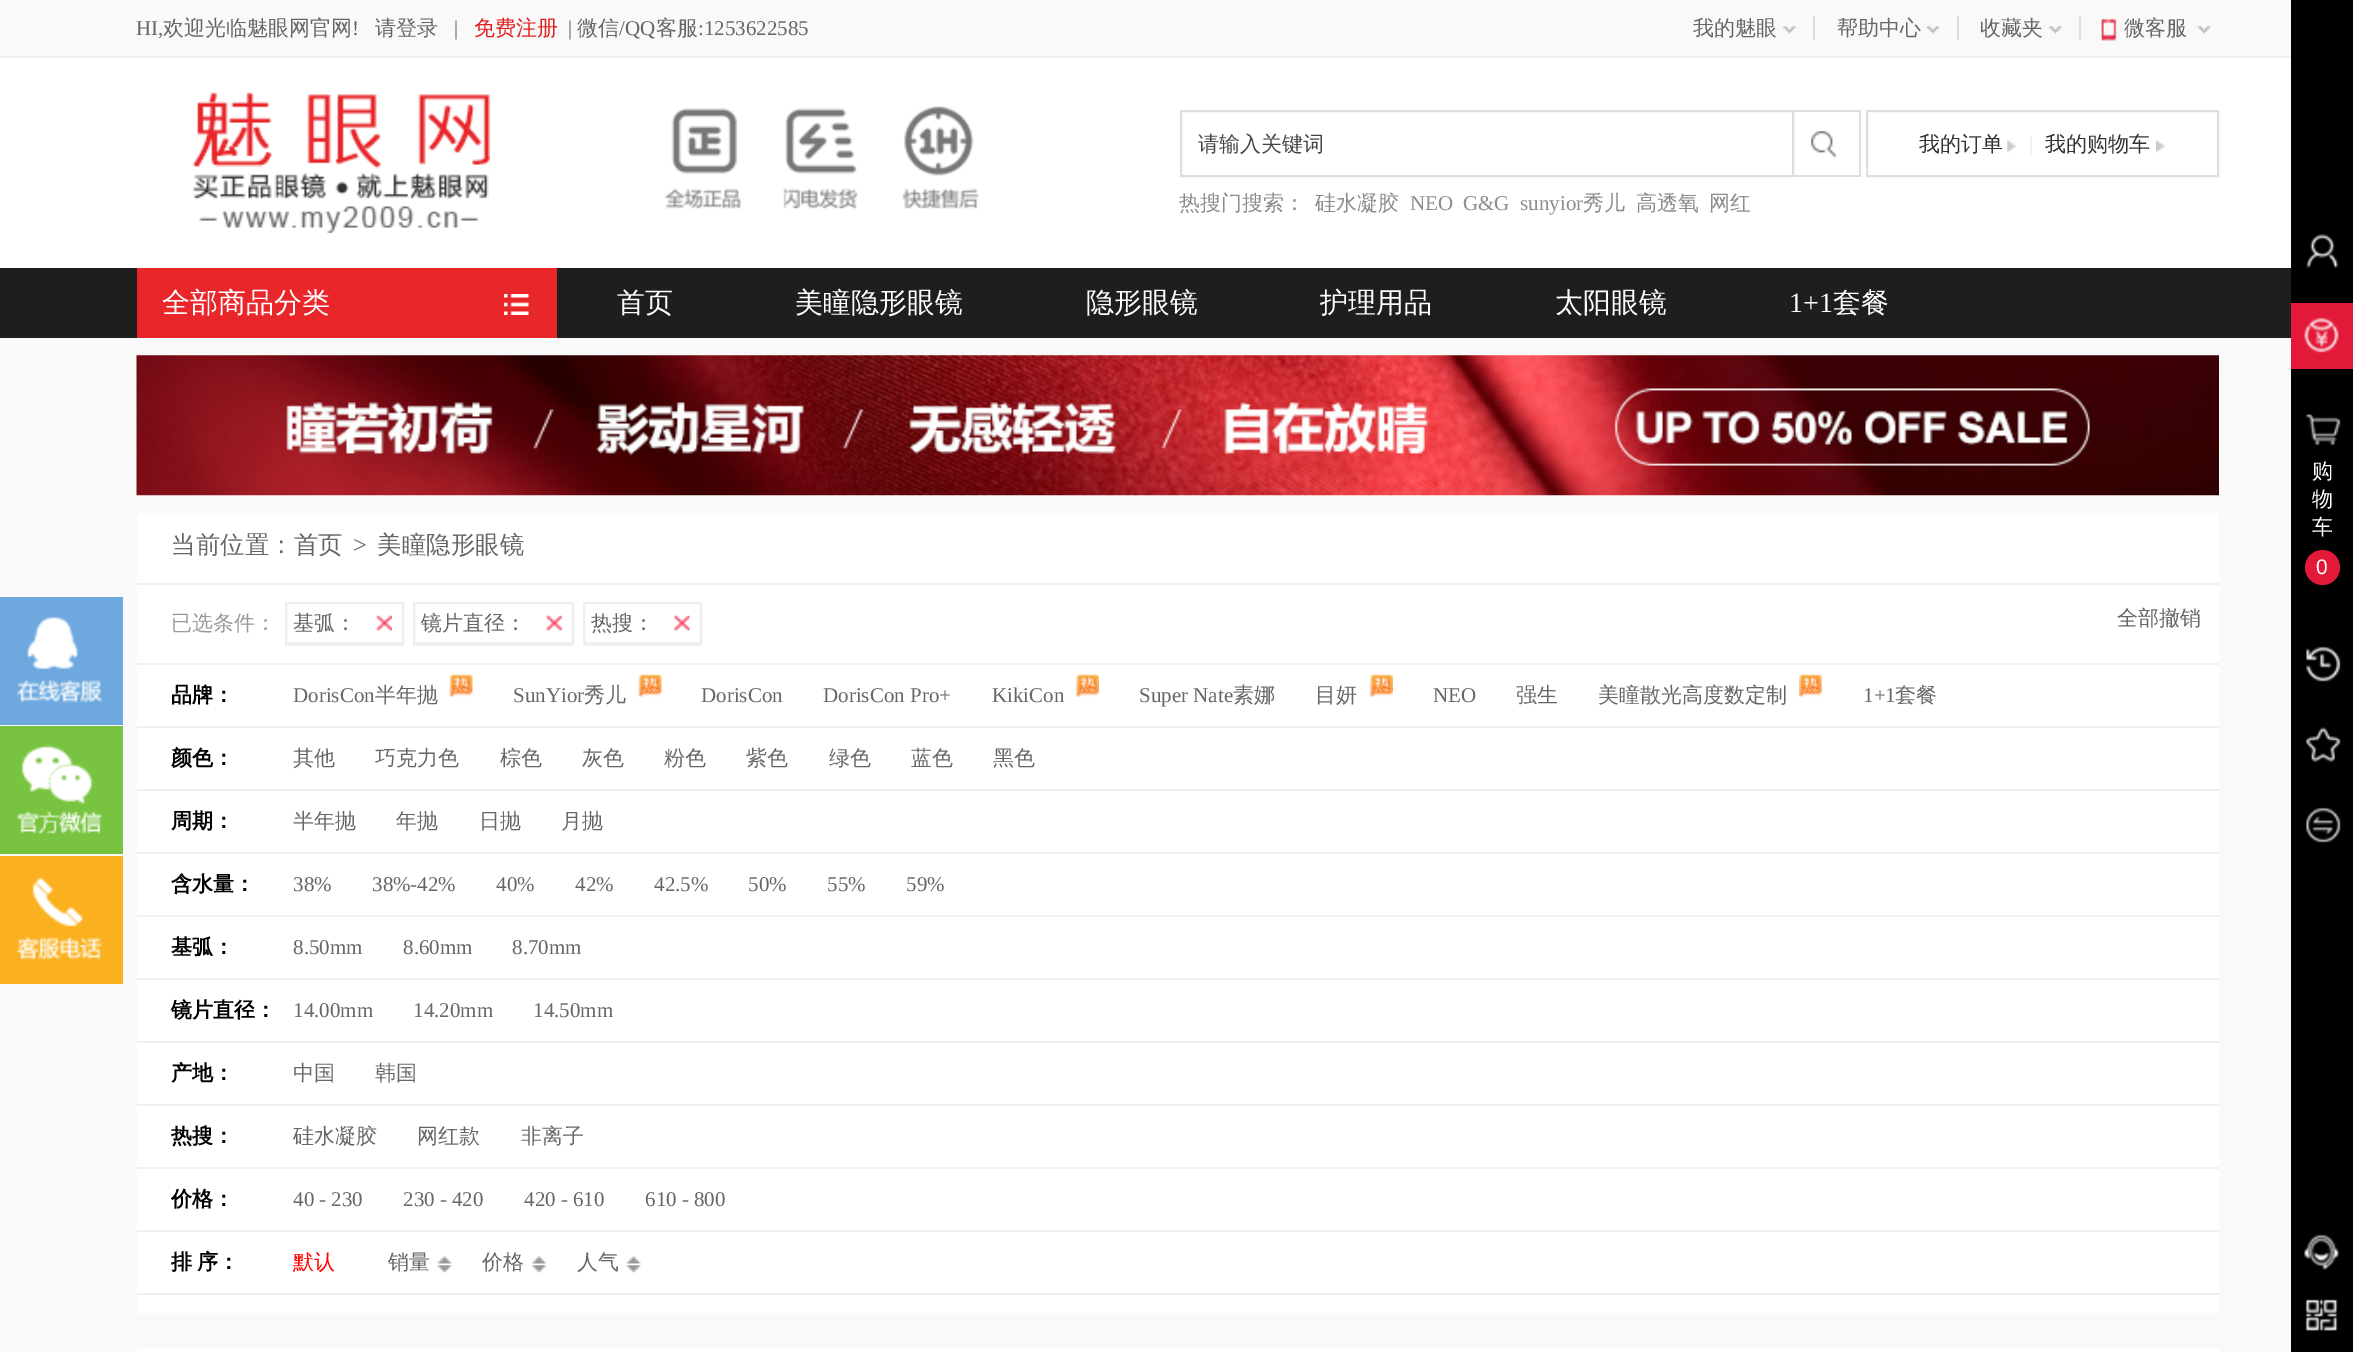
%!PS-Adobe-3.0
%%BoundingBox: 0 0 2353 1352
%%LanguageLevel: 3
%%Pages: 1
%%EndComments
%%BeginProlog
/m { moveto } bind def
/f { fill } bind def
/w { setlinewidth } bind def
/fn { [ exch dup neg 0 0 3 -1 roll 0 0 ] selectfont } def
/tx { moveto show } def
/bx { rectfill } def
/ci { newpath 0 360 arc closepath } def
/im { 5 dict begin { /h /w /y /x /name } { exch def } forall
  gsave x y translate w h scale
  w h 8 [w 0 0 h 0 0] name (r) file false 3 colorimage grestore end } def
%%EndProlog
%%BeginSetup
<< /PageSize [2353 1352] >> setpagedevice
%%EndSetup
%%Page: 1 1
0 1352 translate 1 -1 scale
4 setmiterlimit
0.976 setgray
0 0 2353 1352 bx
0.933 setgray
0 56 2291 2 bx
/LiberationSerif-Regular 21 fn
0.4 setgray
(HI,) 136 35 tx
/WenQuanYiZenHei-Medium 21 fn
(欢迎光临魅眼网官网) 163 35 tx
/LiberationSerif-Regular 21 fn
(!) 352 35 tx
/WenQuanYiZenHei-Medium 21 fn
(请登录) 375 35 tx
/LiberationSerif-Regular 21 fn
(|) 454 35 tx
/WenQuanYiZenHei-Medium 21 fn
0.878 0.114 0.125 setrgbcolor
(免费注册) 474 35 tx
/LiberationSerif-Regular 21 fn
0.4 setgray
(|) 568 35 tx
/WenQuanYiZenHei-Medium 21 fn
(微信) 577 35 tx
/LiberationSerif-Regular 21 fn
(/QQ) 619 35 tx
/WenQuanYiZenHei-Medium 21 fn
(客服) 656 35 tx
/LiberationSerif-Regular 21 fn
(:1253622585) 698 35 tx
/WenQuanYiZenHei-Medium 21 fn
(我的魅眼) 1693 35 tx
(image0.raw) 1783 26 13 8 im
0.867 setgray
1813 16 2 24 bx
0.4 setgray
(帮助中心) 1837 35 tx
(image1.raw) 1926 26 14 8 im
0.867 setgray
1957 16 2 24 bx
0.4 setgray
(收藏夹) 1980 35 tx
(image2.raw) 2049 26 13 8 im
0.867 setgray
2079 16 2 24 bx
(image3.raw) 2101 14 116 35 im
0.4 setgray
(微客服) 2124 35 tx
(image4.raw) 2197 26 14 8 im
1 setgray
0 58 2291 210 bx
(image5.raw) 192 92 298 141 im
(image6.raw) 665 106 314 103 im
0.871 setgray
2 w
1181 111 612 65 rectstroke
0.267 setgray
(请输入关键词) 1198 151 tx
(image7.raw) 1811 131 25 27 im
0.871 setgray
1794 110 66 2 bx
1859 110 2 67 bx
1794 175 66 2 bx
0.549 setgray
(热搜门搜索：) 1179 210 tx
(硅水凝胶) 1315 210 tx
/LiberationSerif-Regular 21 fn
(NEO) 1410 210 tx
(G&G) 1463 210 tx
(sunyior) 1520 210 tx
/WenQuanYiZenHei-Medium 21 fn
(秀儿) 1583 210 tx
(高透氧) 1636 210 tx
(网红) 1709 210 tx
0.871 setgray
1867 111 351 65 rectstroke
0.2 setgray
(我的订单) 1919 151 tx
(image8.raw) 2007 140 9 13 im
/LiberationSerif-Regular 21 fn
0.898 setgray
(|) 2029 151 tx
/WenQuanYiZenHei-Medium 21 fn
0.2 setgray
(我的购物车) 2045 151 tx
(image9.raw) 2156 140 9 13 im
0.118 setgray
0 268 2291 70 bx
0.914 0.149 0.165 setrgbcolor
137 268 420 70 bx
(image10.raw) 504 294 25 21 im
/WenQuanYiZenHei-Medium 28 fn
1 setgray
(全部商品分类) 162 312 tx
(首页) 617 312 tx
(美瞳隐形眼镜) 795 312 tx
(隐形眼镜) 1086 312 tx
(护理用品) 1320 312 tx
(太阳眼镜) 1555 312 tx
/LiberationSerif-Regular 28 fn
(1+1) 1789 312 tx
/WenQuanYiZenHei-Medium 28 fn
(套餐) 1833 312 tx
(image11.raw) 136 355 2083 141 im
137 513 2082 800 bx
/WenQuanYiZenHei-Medium 24.5 fn
0.4 setgray
(当前位置：首页) 171 553 tx
/LiberationSerif-Regular 24.5 fn
(>) 353 553 tx
/WenQuanYiZenHei-Medium 24.5 fn
(美瞳隐形眼镜) 377 553 tx
0 setgray
2291 0 62 1352 bx
(image12.raw) 2306 234 33 35 im
0.89 0.098 0.224 setrgbcolor
2291 303 62 66 bx
(image13.raw) 2304 317 35 36 im
(image14.raw) 2306 414 35 32 im
/WenQuanYiZenHei-Medium 21 fn
1 setgray
(购) 2312 478 tx
(物) 2312 506 tx
(车) 2312 534 tx
0.89 0.098 0.224 setrgbcolor
2322.5 567.5 17.5 ci f
/LiberationSans-Regular 21 fn
1 setgray
(0) 2316 574 tx
(image15.raw) 2306 646 35 36 im
(image16.raw) 2306 727 35 36 im
(image17.raw) 2306 807 35 36 im
(image18.raw) 2304 1234 36 36 im
(image19.raw) 2305 1299 33 32 im
0.427 0.663 0.871 setrgbcolor
0 597 123 128 bx
(image20.raw) 16 616 87 87 im
0.471 0.765 0.251 setrgbcolor
0 726 123 128 bx
(image21.raw) 17 745 85 89 im
0.984 0.69 0.122 setrgbcolor
0 856 123 128 bx
(image22.raw) 16 877 87 83 im
0.933 setgray
137 583 2082 2 bx
0.941 setgray
137 663 2082 2 bx
/WenQuanYiZenHei-Medium 21 fn
0.6 setgray
(已选条件：) 171 630 tx
0.941 setgray
285 644 119 2 bx
0.933 setgray
286 603 117 40 rectstroke
0.4 setgray
(基弧：) 293 630 tx
(image23.raw) 376 615 16 16 im
0.941 setgray
413 644 161 2 bx
0.933 setgray
414 603 159 40 rectstroke
0.4 setgray
(镜片直径：) 421 630 tx
(image24.raw) 546 615 16 16 im
0.941 setgray
583 644 119 2 bx
0.933 setgray
584 603 117 40 rectstroke
0.4 setgray
(热搜：) 591 630 tx
(image25.raw) 674 615 16 16 im
(全部撤销) 2117 625 tx
0.941 setgray
137 726 2082 2 bx
/WenQuanYiZenHei-Bold 21 fn
0 setgray
(品牌：) 171 702 tx
/LiberationSerif-Regular 21 fn
0.4 setgray
(DorisCon) 293 702 tx
/WenQuanYiZenHei-Medium 21 fn
(半年抛) 375 702 tx
(image26.raw) 449 673 24 24 im
/LiberationSerif-Regular 21 fn
(SunYior) 513 702 tx
/WenQuanYiZenHei-Medium 21 fn
(秀儿) 584 702 tx
(image26.raw) 638 673 24 24 im
/LiberationSerif-Regular 21 fn
(DorisCon) 701 702 tx
(DorisCon Pro+) 823 702 tx
(KikiCon) 992 702 tx
(image27.raw) 1076 673 23 24 im
(Super Nate) 1139 702 tx
/WenQuanYiZenHei-Medium 21 fn
(素娜) 1233 702 tx
(目妍) 1315 702 tx
(image27.raw) 1370 673 23 24 im
/LiberationSerif-Regular 21 fn
(NEO) 1433 702 tx
/WenQuanYiZenHei-Medium 21 fn
(强生) 1516 702 tx
(美瞳散光高度数定制) 1598 702 tx
(image28.raw) 1799 673 23 24 im
/LiberationSerif-Regular 21 fn
(1+1) 1863 702 tx
/WenQuanYiZenHei-Medium 21 fn
(套餐) 1895 702 tx
0.941 setgray
137 789 2082 2 bx
/WenQuanYiZenHei-Bold 21 fn
0 setgray
(颜色：) 171 765 tx
/WenQuanYiZenHei-Medium 21 fn
0.4 setgray
(其他) 293 765 tx
(巧克力色) 375 765 tx
(棕色) 500 765 tx
(灰色) 582 765 tx
(粉色) 664 765 tx
(紫色) 746 765 tx
(绿色) 829 765 tx
(蓝色) 911 765 tx
(黑色) 993 765 tx
0.941 setgray
137 852 2082 2 bx
/WenQuanYiZenHei-Bold 21 fn
0 setgray
(周期：) 171 828 tx
/WenQuanYiZenHei-Medium 21 fn
0.4 setgray
(半年抛) 293 828 tx
(年抛) 396 828 tx
(日抛) 479 828 tx
(月抛) 561 828 tx
0.941 setgray
137 915 2082 2 bx
/WenQuanYiZenHei-Bold 21 fn
0 setgray
(含水量：) 171 891 tx
/LiberationSerif-Regular 21 fn
0.4 setgray
(38%) 293 891 tx
(38%-42%) 372 891 tx
(40%) 496 891 tx
(42%) 575 891 tx
(42.5%) 654 891 tx
(50%) 748 891 tx
(55%) 827 891 tx
(59%) 906 891 tx
0.941 setgray
137 978 2082 2 bx
/WenQuanYiZenHei-Bold 21 fn
0 setgray
(基弧：) 171 954 tx
/LiberationSerif-Regular 21 fn
0.4 setgray
(8.50mm) 293 954 tx
(8.60mm) 403 954 tx
(8.70mm) 512 954 tx
0.941 setgray
137 1041 2082 2 bx
/WenQuanYiZenHei-Bold 21 fn
0 setgray
(镜片直径：) 171 1017 tx
/LiberationSerif-Regular 21 fn
0.4 setgray
(14.00mm) 293 1017 tx
(14.20mm) 413 1017 tx
(14.50mm) 533 1017 tx
0.941 setgray
137 1104 2082 2 bx
/WenQuanYiZenHei-Bold 21 fn
0 setgray
(产地：) 171 1080 tx
/WenQuanYiZenHei-Medium 21 fn
0.4 setgray
(中国) 293 1080 tx
(韩国) 375 1080 tx
0.941 setgray
137 1167 2082 2 bx
/WenQuanYiZenHei-Bold 21 fn
0 setgray
(热搜：) 171 1143 tx
/WenQuanYiZenHei-Medium 21 fn
0.4 setgray
(硅水凝胶) 293 1143 tx
(网红款) 417 1143 tx
(非离子) 521 1143 tx
0.941 setgray
137 1230 2082 2 bx
/WenQuanYiZenHei-Bold 21 fn
0 setgray
(价格：) 171 1206 tx
/LiberationSerif-Regular 21 fn
0.4 setgray
(40 - 230) 293 1206 tx
(230 - 420) 403 1206 tx
(420 - 610) 524 1206 tx
(610 - 800) 645 1206 tx
0.941 setgray
137 1293 2082 2 bx
/WenQuanYiZenHei-Bold 21 fn
0 setgray
171 1269 m -1 0 32 (排 序：) widthshow
/WenQuanYiZenHei-Medium 21 fn
1 0 0 setrgbcolor
(默认) 293 1269 tx
0.4 setgray
(销量) 388 1269 tx
(image29.raw) 437 1256 15 8 im
(image30.raw) 437 1265 15 8 im
(价格) 482 1269 tx
(image31.raw) 532 1256 14 8 im
(image32.raw) 532 1265 14 8 im
(人气) 577 1269 tx
(image29.raw) 626 1256 15 8 im
(image30.raw) 626 1265 15 8 im
1 setgray
137 1348 2082 4 bx
showpage
%%EOF
